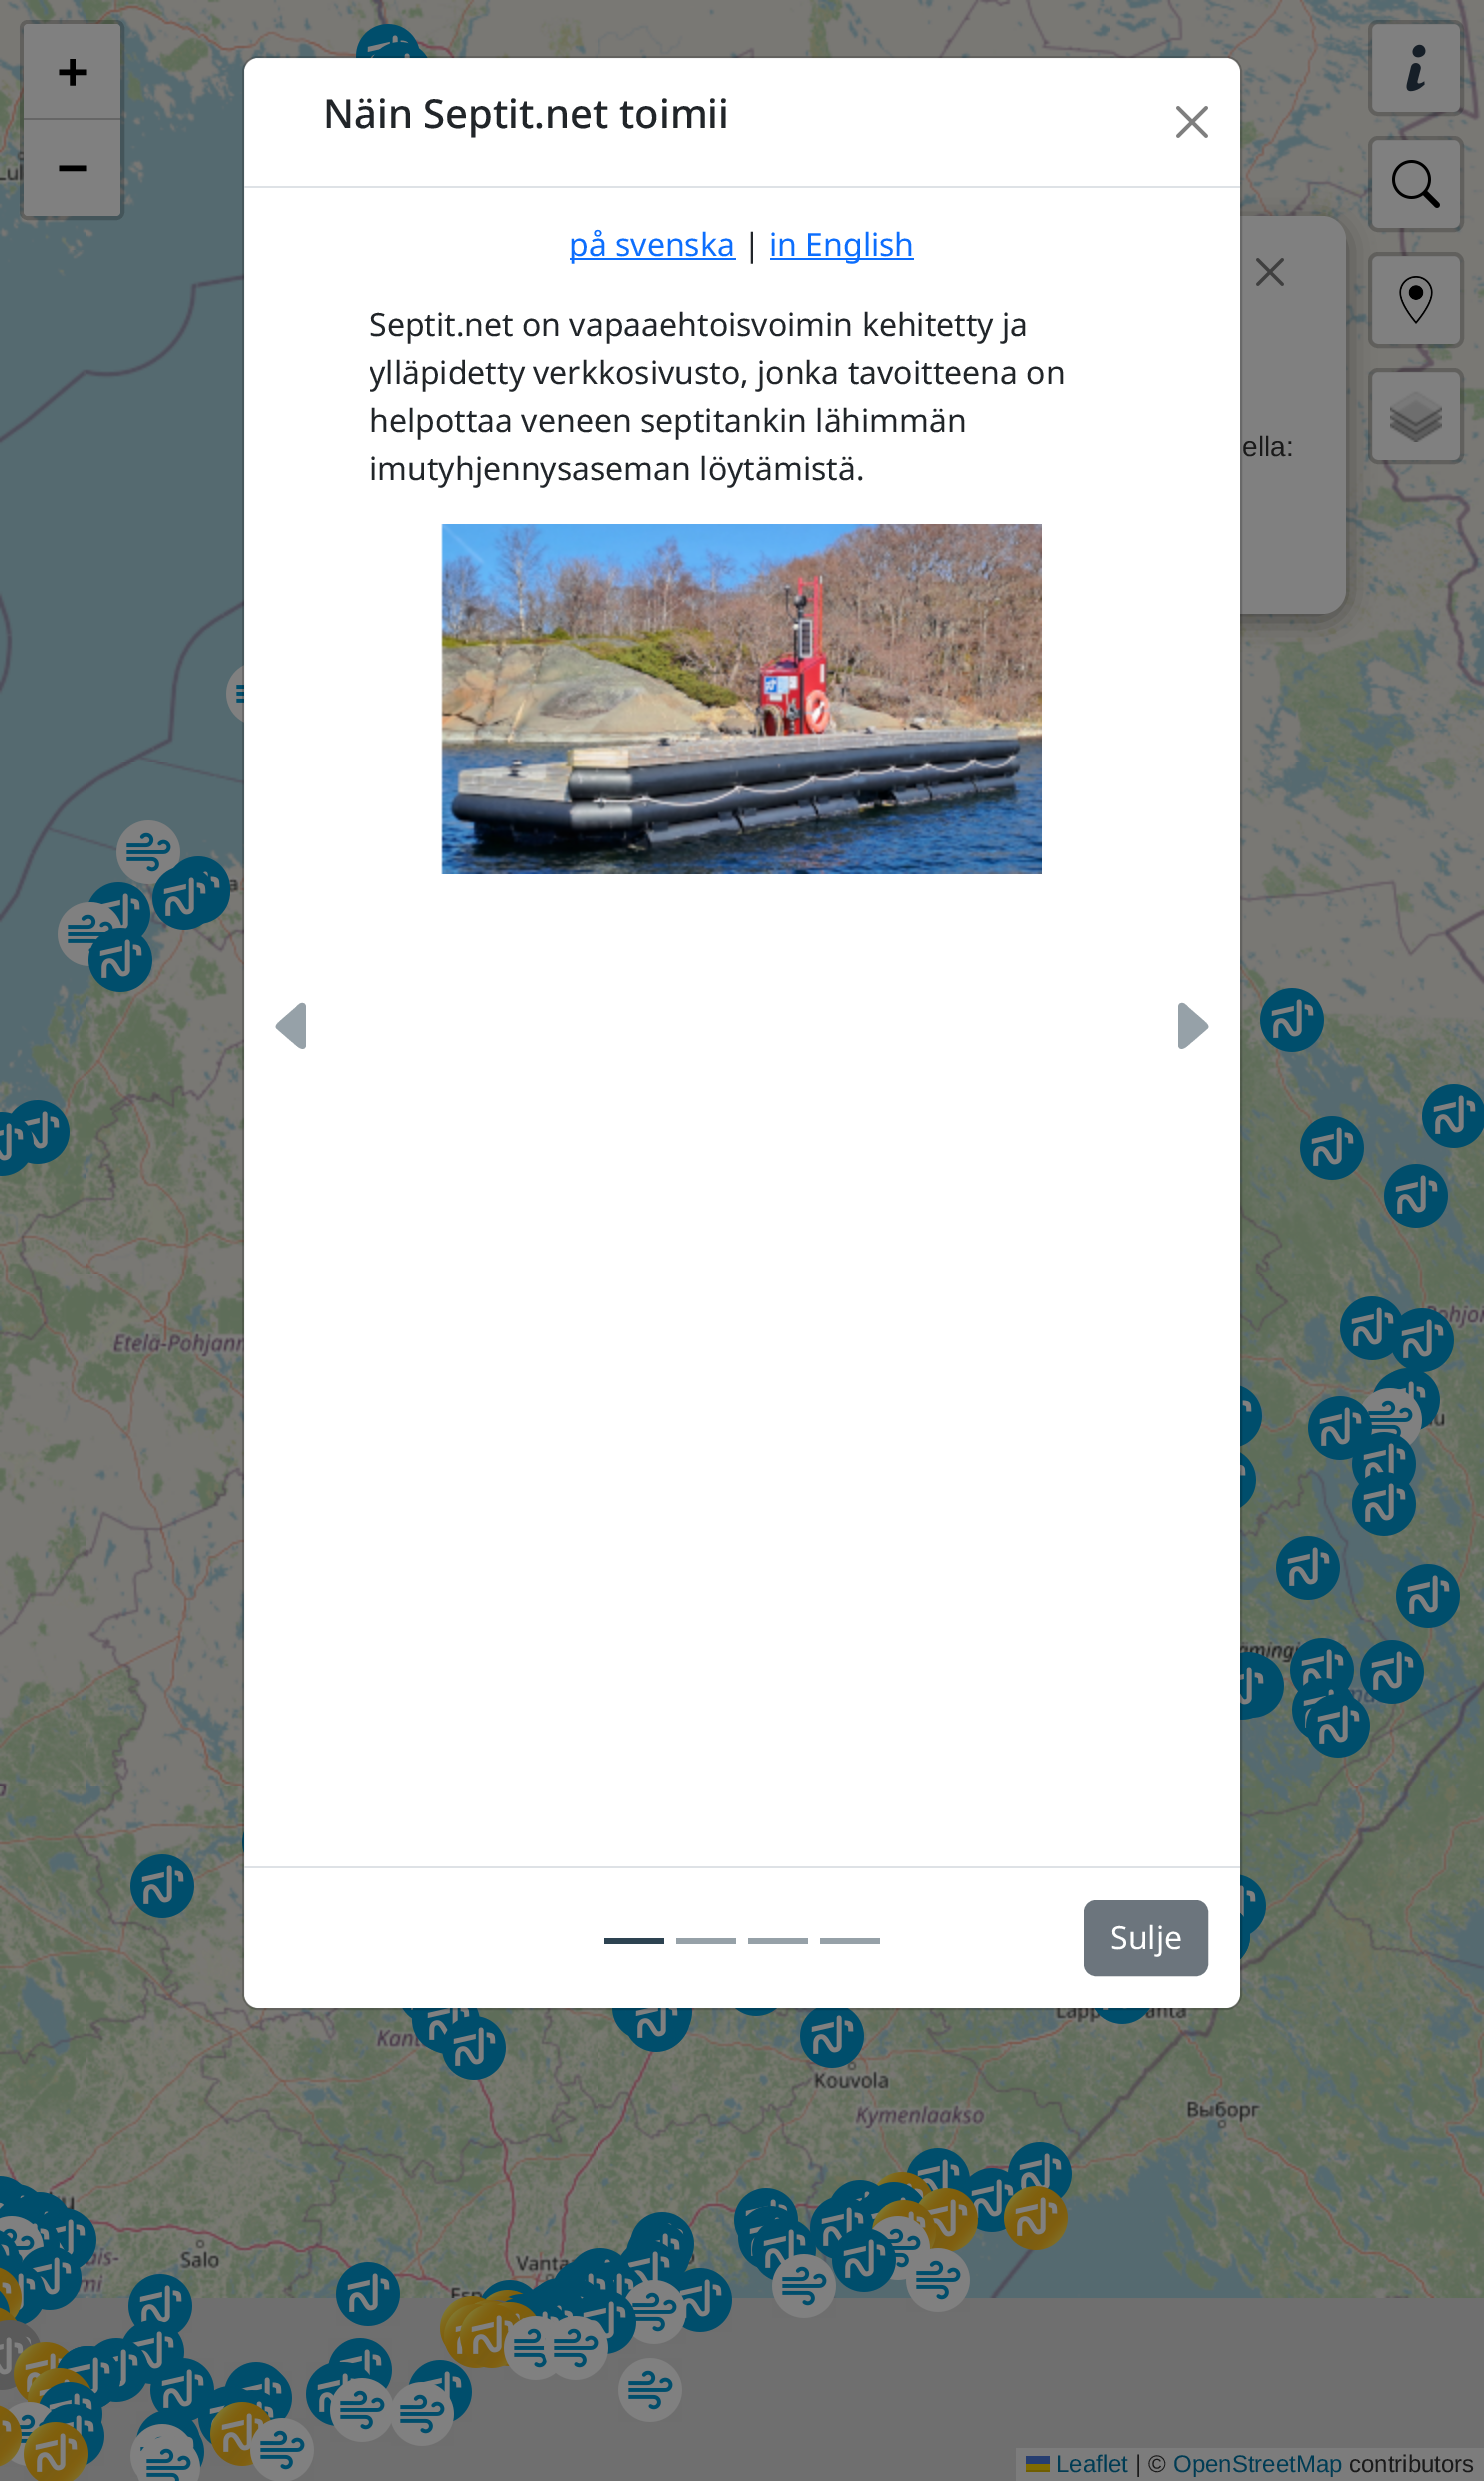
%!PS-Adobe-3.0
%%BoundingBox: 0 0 1484 2481
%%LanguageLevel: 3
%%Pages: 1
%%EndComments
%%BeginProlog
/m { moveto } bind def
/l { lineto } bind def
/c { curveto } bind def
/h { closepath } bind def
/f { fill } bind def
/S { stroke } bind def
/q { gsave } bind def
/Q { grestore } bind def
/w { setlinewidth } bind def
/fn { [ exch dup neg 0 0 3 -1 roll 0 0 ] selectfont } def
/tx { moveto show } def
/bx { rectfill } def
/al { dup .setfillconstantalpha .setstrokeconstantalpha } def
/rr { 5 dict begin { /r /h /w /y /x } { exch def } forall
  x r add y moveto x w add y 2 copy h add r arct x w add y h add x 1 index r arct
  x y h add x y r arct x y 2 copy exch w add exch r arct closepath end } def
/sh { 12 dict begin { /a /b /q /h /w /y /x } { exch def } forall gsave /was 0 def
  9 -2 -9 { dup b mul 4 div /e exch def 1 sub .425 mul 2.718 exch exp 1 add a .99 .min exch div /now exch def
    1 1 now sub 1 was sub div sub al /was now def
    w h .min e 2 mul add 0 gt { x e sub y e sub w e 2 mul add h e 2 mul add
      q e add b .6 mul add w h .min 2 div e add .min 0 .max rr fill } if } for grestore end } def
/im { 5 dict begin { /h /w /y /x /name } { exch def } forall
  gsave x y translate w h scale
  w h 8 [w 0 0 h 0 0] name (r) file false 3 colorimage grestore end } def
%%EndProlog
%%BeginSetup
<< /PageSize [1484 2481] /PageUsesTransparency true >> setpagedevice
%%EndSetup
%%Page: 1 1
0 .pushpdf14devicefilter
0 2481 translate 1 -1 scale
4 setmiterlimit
0.435 setgray
0 0 1484 2481 bx
(image4.raw) 0 0 86 250 im
(image5.raw) 86 0 512 250 im
0.2 al
0 setgray
4 w
22 22 100 196 6 rr S
1 al
0.502 setgray
28 24 m 116 24 l 118 24 120 26 120 28 c 120 120 l 24 120 l 24 28 l 24 26 26 24 28 24 c h f
0.4 setgray
24 118 96 2 bx
/DejaVuSansMono-Bold 50 fn
0 setgray
(+) 58 88 tx
0.502 setgray
24 120 m 120 120 l 120 212 l 120 214 118 216 116 216 c 28 216 l 26 216 24 214 24 212 c h f
0 setgray
(−) 58 184 tx
(image7.raw) 1110 0 374 250 im
0.502 setgray
1372 24 88 88 6 rr f
0.2 al
0 setgray
1370 22 92 92 8 rr S
1 al
(image0.raw) 1406 44 20 48 im
(image10.raw) 1240 250 244 512 im
392 222 954 398 24 14 0.4 sh
0.502 setgray
1372 140 88 88 6 rr f
0.2 al
0 setgray
1370 138 92 92 8 rr S
1 al
(image1.raw) 1392 160 48 48 im
0.502 setgray
1372 256 88 88 6 rr f
0.2 al
0 setgray
1370 254 92 92 8 rr S
1 al
(image2.raw) 1399 276 34 48 im
0.502 setgray
1372 372 88 88 6 rr f
0.2 al
0 setgray
1370 370 92 92 8 rr S
1 al
(image3.raw) 1390 391 52 51 im
0.486 setgray
1016 2448 468 33 bx
/LiberationSans-Regular 24 fn
0 0.235 0.329 setrgbcolor
(Leaflet) 1056 2472 tx
0.149 0.243 0.443 setrgbcolor
1026 2456 24 8 bx
0.502 0.42 0 setrgbcolor
1026 2464 24 6 bx
0.439 0.369 0 setrgbcolor
1026 2470 24 2 bx
0.102 setgray
(| ©) 1135 2472 tx
0 0.235 0.329 setrgbcolor
(OpenStreetMap) 1173 2472 tx
0.102 setgray
(contributors) 1349 2472 tx
(image6.raw) 598 0 512 58 im
(image8.raw) 0 250 86 512 im
(image9.raw) 86 250 158 512 im
(image11.raw) 0 762 86 512 im
(image12.raw) 86 762 158 512 im
(image13.raw) 1240 762 244 512 im
(image14.raw) 0 1274 86 512 im
(image15.raw) 86 1274 158 512 im
(image16.raw) 1240 1274 244 512 im
(image17.raw) 0 1786 86 512 im
(image18.raw) 86 1786 512 512 im
(image19.raw) 598 2008 512 290 im
(image20.raw) 1110 1786 374 512 im
(image21.raw) 356 24 64 34 im
(image22.raw) 372 42 56 16 im
(image23.raw) 226 665 18 58 im
(image24.raw) 116 820 64 64 im
(image25.raw) 172 856 58 40 im
(image28.raw) 192 867 38 57 im
(image26.raw) 152 867 63 63 im
(image27.raw) 88 882 62 54 im
(image29.raw) 58 902 64 64 im
(image30.raw) 88 928 64 64 im
(image31.raw) 1260 988 64 64 im
(image32.raw) 11 1100 59 64 im
(image33.raw) 1422 1084 62 64 im
(image34.raw) 0 1112 34 64 im
(image35.raw) 1300 1116 64 64 im
(image36.raw) 1384 1164 64 64 im
(image37.raw) 1340 1296 62 64 im
(image38.raw) 1392 1308 62 64 im
(image39.raw) 1385 1368 55 62 im
(image40.raw) 1240 1385 22 62 im
(image41.raw) 1373 1371 57 59 im
(image43.raw) 1361 1388 61 58 im
(image42.raw) 1308 1396 64 64 im
(image44.raw) 1240 1452 16 56 im
(image45.raw) 1352 1432 64 52 im
(image46.raw) 1352 1472 64 64 im
(image47.raw) 1276 1536 64 64 im
(image48.raw) 1396 1564 64 64 im
(image49.raw) 1240 1652 28 7 im
(image50.raw) 1290 1638 64 54 im
(image51.raw) 1360 1640 64 64 im
(image52.raw) 1240 1655 44 63 im
(image54.raw) 1253 1658 21 60 im
(image53.raw) 1240 1658 28 62 im
(image55.raw) 1292 1678 62 61 im
(image56.raw) 1306 1694 64 64 im
(image57.raw) 242 1831 2 22 im
(image58.raw) 130 1854 64 64 im
(image59.raw) 1240 1874 26 61 im
(image60.raw) 1240 1913 10 46 im
(image61.raw) 1240 1913 10 46 im
(image62.raw) 402 2008 11 11 im
(image63.raw) 412 2008 3 16 im
(image64.raw) 412 2008 25 44 im
(image65.raw) 423 2008 57 46 im
(image66.raw) 612 2008 17 29 im
(image70.raw) 688 2008 4 20 im
(image68.raw) 671 2008 19 40 im
(image67.raw) 625 2008 59 44 im
(image69.raw) 442 2016 64 64 im
(image71.raw) 735 2008 42 8 im
(image72.raw) 800 2008 64 60 im
(image73.raw) 1094 2008 56 16 im
(image74.raw) 0 2176 22 11 im
(image77.raw) 906 2148 64 44 im
(image76.raw) 876 2172 56 27 im
(image75.raw) 830 2180 49 22 im
(image79.raw) 1008 2142 64 56 im
(image78.raw) 961 2168 62 64 im
(image83.raw) 0 2187 3 2 im
(image80.raw) 0 2184 38 18 im
(image81.raw) 866 2182 57 17 im
(image82.raw) 1004 2186 64 64 im
(image84.raw) 20 2192 49 17 im
(image85.raw) 734 2188 64 49 im
(image86.raw) 873 2188 50 12 im
(image88.raw) 872 2195 50 9 im
(image87.raw) 918 2188 60 64 im
(image89.raw) 21 2197 44 12 im
(image91.raw) 859 2196 41 28 im
(image90.raw) 810 2197 64 62 im
(image94.raw) 0 2202 9 7 im
(image92.raw) 0 2198 44 21 im
(image93.raw) 872 2200 64 50 im
(image95.raw) 6 2205 54 12 im
(image98.raw) 15 2209 41 8 im
(image96.raw) 41 2208 55 60 im
(image97.raw) 738 2206 60 62 im
(image99.raw) 630 2212 64 51 im
(image103.raw) 20 2217 40 31 im
(image100.raw) 0 2216 44 47 im
(image101.raw) 872 2216 58 64 im
(image102.raw) 0 2230 20 36 im
(image104.raw) 626 2223 64 53 im
(image105.raw) 752 2218 64 62 im
(image106.raw) 832 2229 64 63 im
(image107.raw) 0 2244 7 12 im
(image108.raw) 21 2246 61 64 im
(image110.raw) 620 2241 60 45 im
(image109.raw) 573 2248 57 20 im
(image111.raw) 772 2254 64 64 im
(image112.raw) 906 2248 64 64 im
(image113.raw) 0 2263 46 61 im
(image114.raw) 336 2262 64 64 im
(image115.raw) 554 2261 47 18 im
(image116.raw) 589 2262 53 37 im
(image117.raw) 0 2267 22 51 im
(image118.raw) 128 2274 64 59 im
(image119.raw) 555 2271 59 21 im
(image120.raw) 671 2268 61 64 im
(image121.raw) 481 2280 52 20 im
(image123.raw) 571 2280 30 12 im
(image122.raw) 536 2278 48 11 im
(image124.raw) 625 2280 61 64 im
(image125.raw) 0 2291 10 22 im
(image129.raw) 574 2289 21 4 im
(image130.raw) 576 2291 16 8 im
(image128.raw) 531 2284 52 25 im
(image134.raw) 547 2293 29 12 im
(image138.raw) 552 2296 20 8 im
(image131.raw) 539 2293 22 11 im
(image127.raw) 516 2291 26 3 im
(image126.raw) 485 2290 39 10 im
(image132.raw) 579 2292 57 62 im
(image137.raw) 520 2294 39 10 im
(image133.raw) 508 2294 37 10 im
(image136.raw) 485 2296 29 6 im
(image135.raw) 440 2296 49 52 im
(image139.raw) 504 2298 32 4 im
(image140.raw) 473 2300 25 5 im
(image148.raw) 540 2304 40 14 im
(image149.raw) 542 2305 5 1 im
(image141.raw) 506 2299 37 7 im
(image143.raw) 488 2300 22 3 im
(image142.raw) 473 2300 31 5 im
(image145.raw) 480 2302 22 3 im
(image144.raw) 444 2304 41 64 im
(image151.raw) 525 2306 42 17 im
(image146.raw) 496 2302 41 64 im
(image147.raw) 460 2304 61 64 im
(image150.raw) 0 2307 17 15 im
(image152.raw) 0 2320 41 26 im
(image153.raw) 122 2320 62 64 im
(image154.raw) 504 2316 52 64 im
(image155.raw) 544 2316 64 64 im
(image156.raw) 0 2331 32 59 im
(image157.raw) 93 2338 55 64 im
(image158.raw) 328 2338 64 51 im
(image159.raw) 14 2342 56 59 im
(image160.raw) 57 2346 63 62 im
(image161.raw) 57 2346 63 62 im
(image162.raw) 150 2358 64 63 im
(image163.raw) 224 2362 59 25 im
(image169.raw) 336 2362 38 19 im
(image164.raw) 306 2362 60 64 im
(image165.raw) 408 2360 64 62 im
(image166.raw) 618 2358 64 64 im
(image167.raw) 28 2368 63 36 im
(image168.raw) 233 2371 59 48 im
(image170.raw) 39 2382 63 41 im
(image171.raw) 198 2386 49 59 im
(image172.raw) 330 2378 63 64 im
(image173.raw) 391 2382 63 64 im
(image174.raw) 8 2402 44 64 im
(image175.raw) 222 2390 62 31 im
(image176.raw) 0 2405 22 62 im
(image177.raw) 41 2404 63 62 im
(image178.raw) 136 2411 64 27 im
(image179.raw) 210 2402 61 64 im
(image180.raw) 250 2418 64 63 im
(image181.raw) 24 2422 64 59 im
(image182.raw) 153 2421 51 48 im
(image183.raw) 130 2424 64 53 im
(image184.raw) 137 2436 63 45 im
0.502 setgray
392 216 954 398 24 rr f
(image185.raw) 1256 258 28 28 im
/LiberationSans-Regular 28 fn
0.102 setgray
(ella:) 1242 456 tx
1 setgray
244 58 996 1950 14 rr f
0.18 al
0 setgray
2 w
243 57 998 1952 15 rr S
1 al
0.871 0.886 0.902 setrgbcolor
244 186 996 2 bx
/NotoSans-Medium 40 fn
0.129 0.145 0.161 setrgbcolor
(Näin Septit.net toimii) 323 128 tx
(image186.raw) 1176 106 32 32 im
0.051 0.431 0.992 setrgbcolor
570 258 166 2 bx
/NotoSans-Regular 32 fn
(på svenska) 569 256 tx
0.129 0.145 0.161 setrgbcolor
(|) 743 256 tx
0.051 0.431 0.992 setrgbcolor
770 258 144 2 bx
(in English) 769 256 tx
0.129 0.145 0.161 setrgbcolor
(Septit.net on vapaaehtoisvoimin kehitetty ja) 369 336 tx
q
370 220 744 1614 rectclip
(ylläpidetty verkkosivusto, jonka tavoitteena on) 369 384 tx
Q
(helpottaa veneen septitankin lähimmän) 369 432 tx
(imutyhjennysaseman löytämistä.) 369 480 tx
(image187.raw) 441 524 601 350 im
0.588 0.631 0.659 setrgbcolor
277 1029 m 292 1042 l 294 1043 303 1054 306 1046 c 306 1006 l 305 1004 l 301 1001 298 1005 296 1007 c 281 1020 l 279 1022 273 1026 277 1029 c h f
1207 1029 m 1192 1042 l 1190 1043 1181 1054 1178 1046 c 1178 1006 l 1179 1004 l 1183 1001 1186 1005 1188 1007 c 1203 1020 l 1205 1022 1211 1026 1207 1029 c h f
0.871 0.886 0.902 setrgbcolor
244 1866 996 2 bx
0.176 0.263 0.318 setrgbcolor
604 1938 60 6 bx
0.588 0.631 0.659 setrgbcolor
676 1938 60 6 bx
748 1938 60 6 bx
820 1938 60 6 bx
0.424 0.459 0.49 setrgbcolor
1085 1901 122 74 11 rr q f Q
S
1 setgray
(Sulje) 1110 1949 tx
.poppdf14devicefilter showpage
%%EOF
